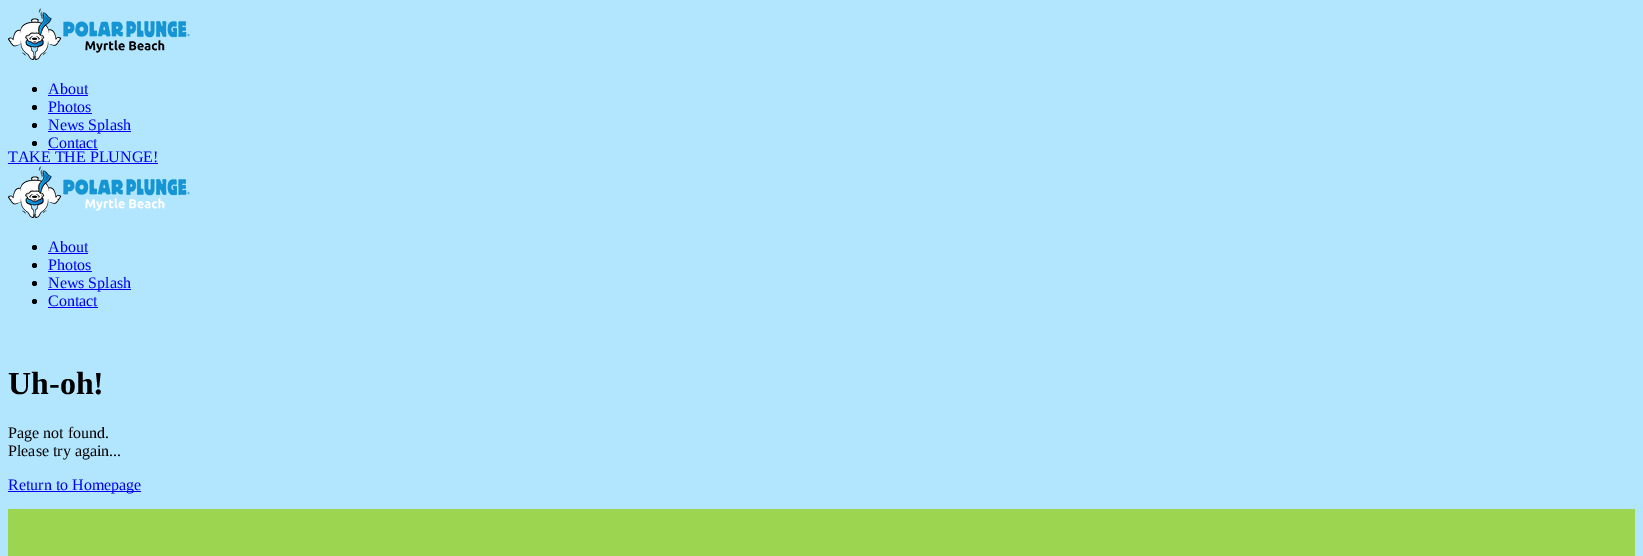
%!PS-Adobe-3.0
%%BoundingBox: 0 0 1643 556
%%LanguageLevel: 3
%%Pages: 1
%%EndComments
%%BeginProlog
/f { fill } bind def
/fn { [ exch dup neg 0 0 3 -1 roll 0 0 ] selectfont } def
/tx { moveto show } def
/bx { rectfill } def
/ci { newpath 0 360 arc closepath } def
/im { 5 dict begin { /h /w /y /x /name } { exch def } forall
  gsave x y translate w h scale
  w h 8 [w 0 0 h 0 0] name (r) file false 3 colorimage grestore end } def
%%EndProlog
%%BeginSetup
<< /PageSize [1643 556] >> setpagedevice
%%EndSetup
%%Page: 1 1
0 556 translate 1 -1 scale
4 setmiterlimit
0.698 0.902 1 setrgbcolor
0 0 1643 556 bx
(image0.raw) 8 8 182 52 im
0 setgray
34.5 89.5 2.5 ci f
/LiberationSerif-Regular 16 fn
0 0 0.933 setrgbcolor
(About) 48 94 tx
48 95 40 1 bx
0 setgray
34.5 107.5 2.5 ci f
0 0 0.933 setrgbcolor
(Photos) 48 112 tx
48 113 44 1 bx
0 setgray
34.5 125.5 2.5 ci f
0 0 0.933 setrgbcolor
48 131 83 1 bx
(News Splash) 48 130 tx
0 setgray
34.5 143.5 2.5 ci f
0 0 0.933 setrgbcolor
(Contact) 48 148 tx
48 149 50 1 bx
(TAKE THE PLUNGE!) 8 162 tx
8 163 150 1 bx
(image1.raw) 8 166 182 52 im
0 setgray
34.5 247.5 2.5 ci f
0 0 0.933 setrgbcolor
(About) 48 252 tx
48 253 40 1 bx
0 setgray
34.5 265.5 2.5 ci f
0 0 0.933 setrgbcolor
(Photos) 48 270 tx
48 271 44 1 bx
0 setgray
34.5 283.5 2.5 ci f
0 0 0.933 setrgbcolor
48 289 83 1 bx
(News Splash) 48 288 tx
0 setgray
34.5 301.5 2.5 ci f
0 0 0.933 setrgbcolor
(Contact) 48 306 tx
48 307 50 1 bx
/LiberationSerif-Bold 32 fn
0 setgray
(Uh-oh!) 8 394 tx
/LiberationSerif-Regular 16 fn
(Page not found.) 8 438 tx
(Please try again...) 8 456 tx
0 0 0.933 setrgbcolor
8 491 133 1 bx
(Return to Homepage) 8 490 tx
0.612 0.839 0.314 setrgbcolor
8 509 1627 47 bx
showpage
%%EOF
